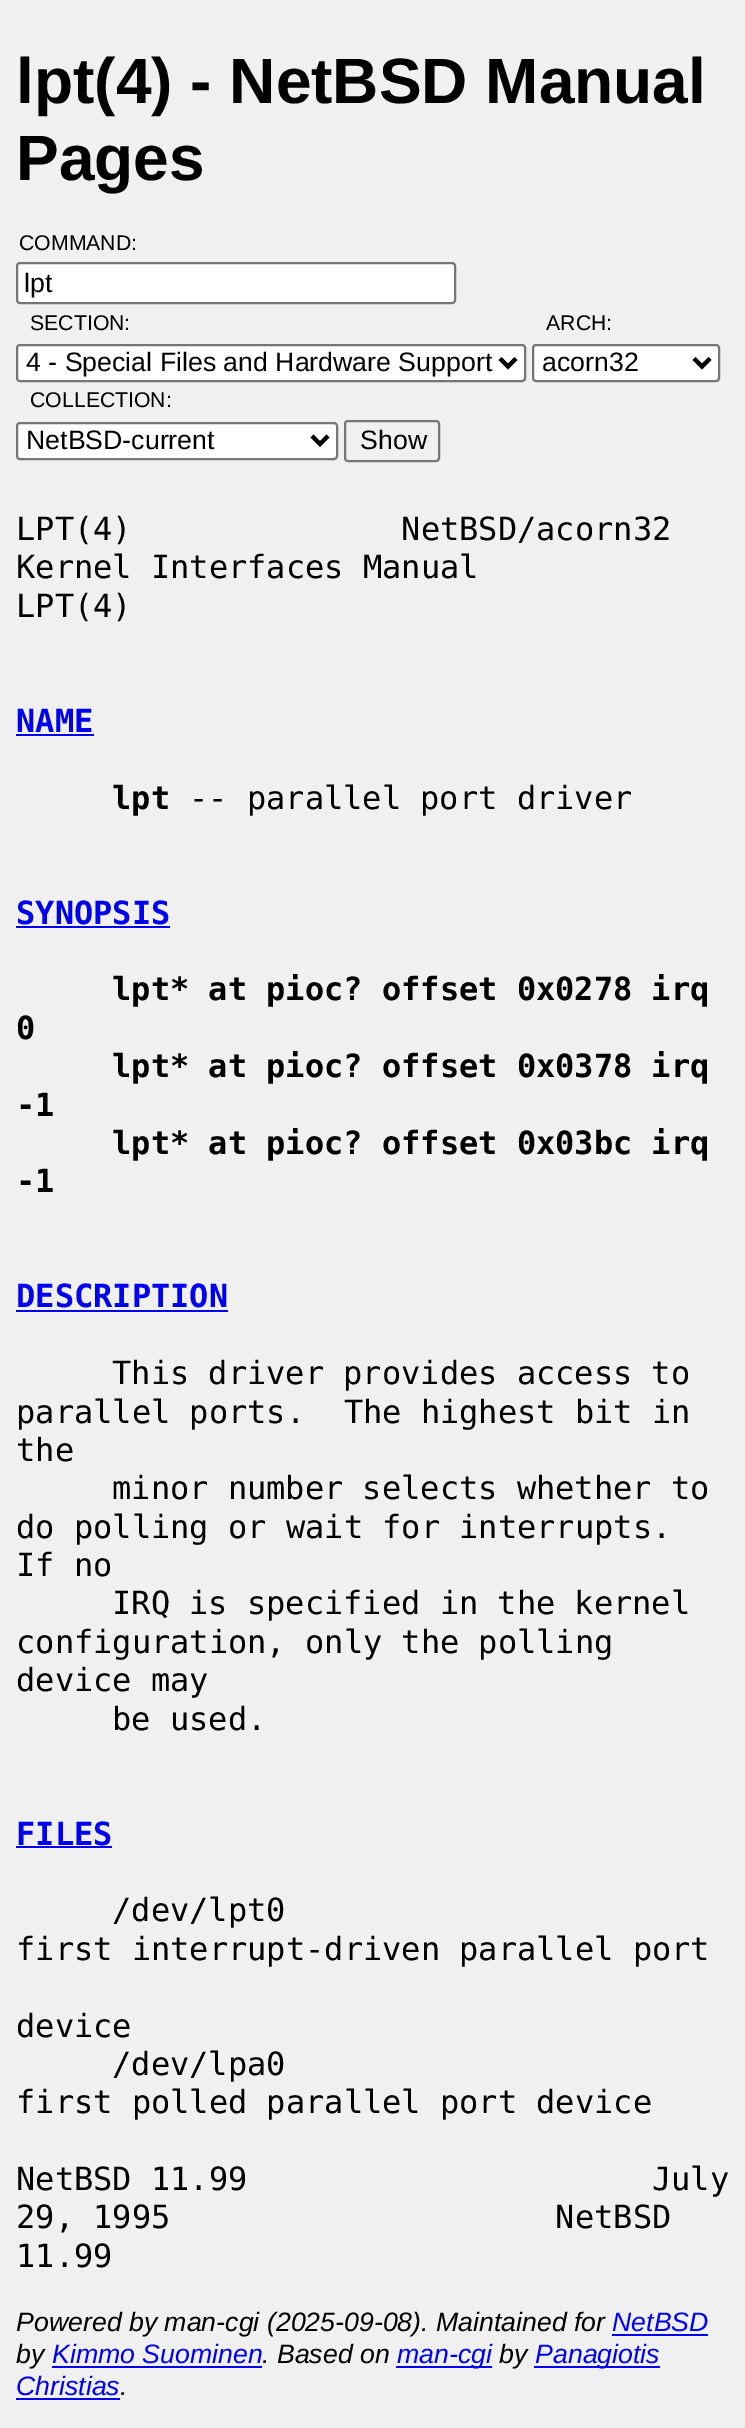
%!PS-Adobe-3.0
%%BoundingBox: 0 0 745 2428
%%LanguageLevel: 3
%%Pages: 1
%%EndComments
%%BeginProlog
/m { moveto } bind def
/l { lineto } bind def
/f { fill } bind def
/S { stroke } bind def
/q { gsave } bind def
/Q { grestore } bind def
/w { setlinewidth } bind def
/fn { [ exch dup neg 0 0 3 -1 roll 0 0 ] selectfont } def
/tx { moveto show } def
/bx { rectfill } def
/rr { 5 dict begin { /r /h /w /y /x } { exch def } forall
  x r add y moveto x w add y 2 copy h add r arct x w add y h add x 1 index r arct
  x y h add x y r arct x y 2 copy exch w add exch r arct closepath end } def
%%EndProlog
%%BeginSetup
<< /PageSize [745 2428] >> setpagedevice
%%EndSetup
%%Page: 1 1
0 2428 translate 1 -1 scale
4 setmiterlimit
0.941 setgray
0 0 745 2428 bx
/LiberationSans-Bold 64 fn
0 setgray
(lpt\(4\) - NetBSD Manual) 16 103 tx
(Pages) 16 180 tx
/LiberationSans-Regular 21.25 fn
(COMMAND:) 19 250 tx
1 setgray
17 263 438 40 3 rr q f Q
0.463 setgray
2 w
S
/LiberationSans-Regular 26.7 fn
0 setgray
(lpt) 24 292 tx
/LiberationSans-Regular 21.25 fn
(SECTION:) 30 330 tx
1 setgray
17 345 508 36 3 rr q f Q
0.463 setgray
S
0 setgray
4 w
500 358.5 m 508 366.5 l 516 358.5 l S
/LiberationSans-Regular 26.7 fn
(4 - Special Files and Hardware Support) 26 371 tx
/LiberationSans-Regular 21.25 fn
(ARCH:) 546 330 tx
1 setgray
533 345 186 36 3 rr q f Q
0.463 setgray
2 w
S
0 setgray
4 w
694 358.5 m 702 366.5 l 710 358.5 l S
/LiberationSans-Regular 26.7 fn
(acorn32) 542 371 tx
/LiberationSans-Regular 21.25 fn
(COLLECTION:) 30 407 tx
1 setgray
17 423 320 36 3 rr q f Q
0.463 setgray
2 w
S
0 setgray
4 w
312 436 m 320 444 l 328 436 l S
/LiberationSans-Regular 26.7 fn
(NetBSD-current) 26 449 tx
0.463 setgray
2 w
345 421 94 40 3 rr S
0 setgray
(Show) 360 449 tx
/DejaVuSansMono-Regular 32 fn
(LPT\(4\)              NetBSD/acorn32) 16 540 tx
(Kernel Interfaces Manual) 16 578 tx
(LPT\(4\)) 16 617 tx
/DejaVuSansMono-Bold 32 fn
0 0 0.941 setrgbcolor
(NAME) 16 732 tx
16 734 78 2 bx
0 setgray
(lpt) 112 809 tx
/DejaVuSansMono-Regular 32 fn
(-- parallel port driver) 189 809 tx
/DejaVuSansMono-Bold 32 fn
0 0 0.941 setrgbcolor
(SYNOPSIS) 16 924 tx
16 926 154 2 bx
0 setgray
(lpt* at pioc? offset 0x0278 irq) 112 1000 tx
(0) 16 1039 tx
(lpt* at pioc? offset 0x0378 irq) 112 1077 tx
(-1) 16 1116 tx
(lpt* at pioc? offset 0x03bc irq) 112 1154 tx
(-1) 16 1192 tx
0 0 0.941 setrgbcolor
(DESCRIPTION) 16 1307 tx
16 1310 212 2 bx
/DejaVuSansMono-Regular 32 fn
0 setgray
(This driver provides access to) 112 1384 tx
(parallel ports.  The highest bit in) 16 1423 tx
(the) 16 1461 tx
(minor number selects whether to) 112 1499 tx
(do polling or wait for interrupts.) 16 1538 tx
(If no) 16 1576 tx
(IRQ is specified in the kernel) 112 1614 tx
(configuration, only the polling) 16 1653 tx
(device may) 16 1691 tx
(be used.) 112 1730 tx
/DejaVuSansMono-Bold 32 fn
0 0 0.941 setrgbcolor
(FILES) 16 1845 tx
16 1846 96 2 bx
/DejaVuSansMono-Regular 32 fn
0 setgray
(/dev/lpt0) 112 1921 tx
(first interrupt-driven parallel port) 16 1960 tx
(device) 16 2037 tx
(/dev/lpa0) 112 2075 tx
(first polled parallel port device) 16 2113 tx
(NetBSD 11.99                     July) 16 2190 tx
(29, 1995                    NetBSD) 16 2228 tx
(11.99) 16 2267 tx
/LiberationSans-Italic 26.7 fn
(Powered by man-cgi \(2025-09-08\). Maintained for) 16 2331 tx
0 0 0.941 setrgbcolor
(NetBSD) 612 2331 tx
612 2334 96 2 bx
0 setgray
(by) 16 2363 tx
0 0 0.941 setrgbcolor
(Kimmo Suominen) 52 2363 tx
52 2366 210 2 bx
0 setgray
(. Based on) 262 2363 tx
0 0 0.941 setrgbcolor
396 2366 96 2 bx
(man-cgi) 397 2363 tx
0 setgray
(by) 499 2363 tx
0 0 0.941 setrgbcolor
534 2366 126 2 bx
(Panagiotis) 535 2363 tx
(Christias) 16 2395 tx
16 2398 104 2 bx
0 setgray
(.) 120 2395 tx
showpage
%%EOF
